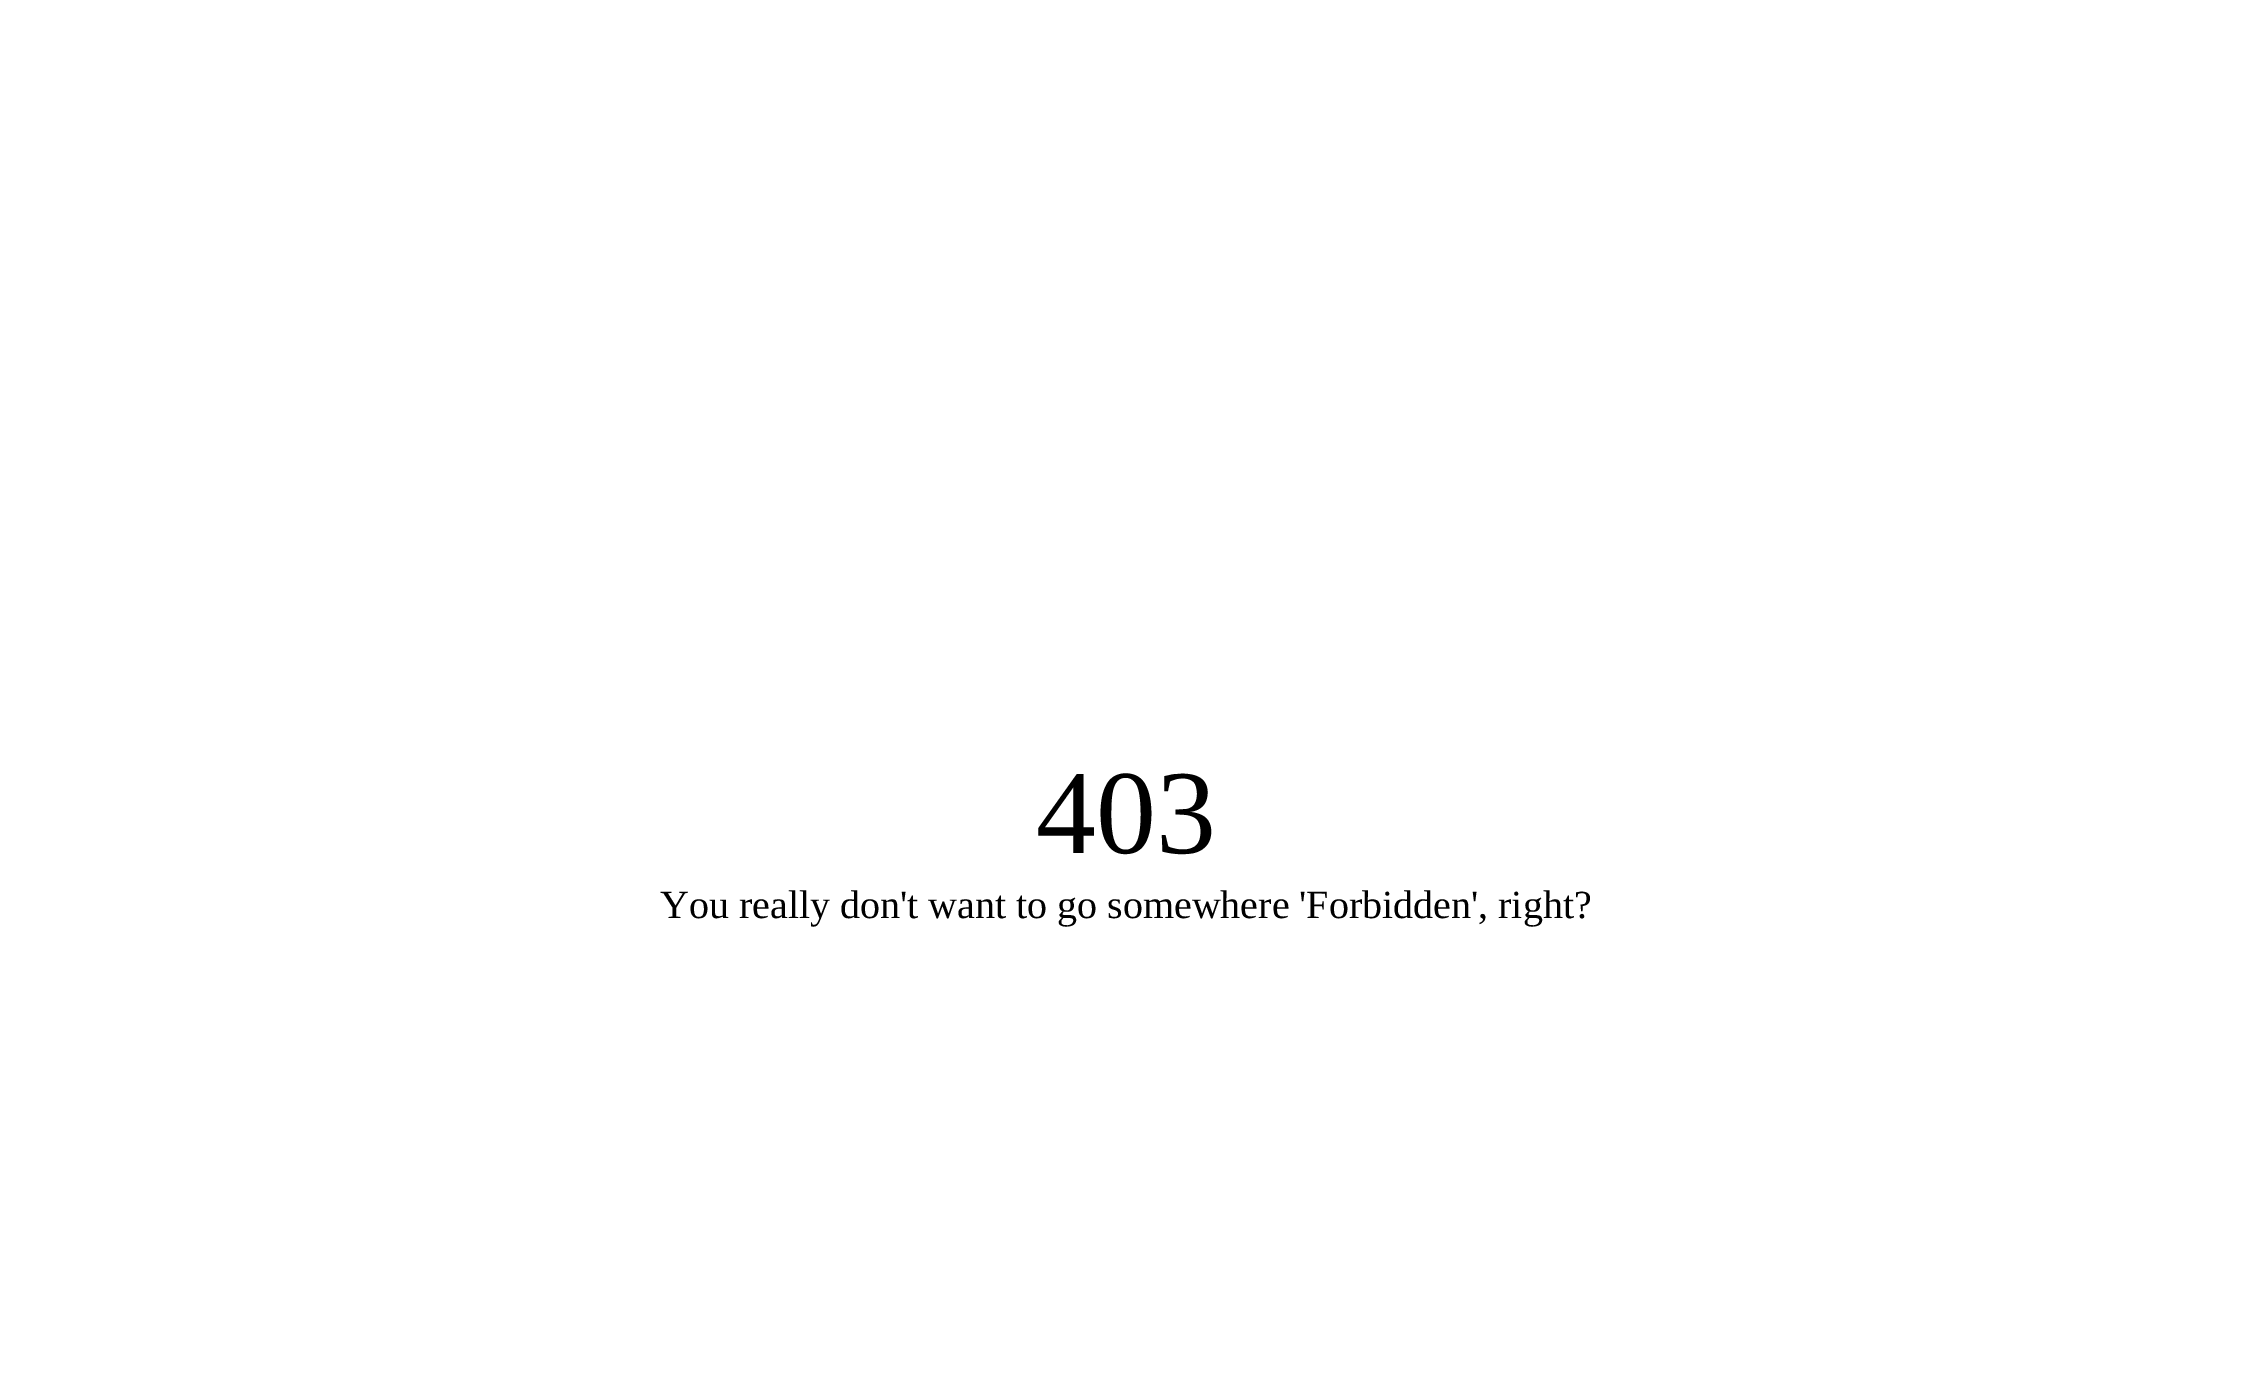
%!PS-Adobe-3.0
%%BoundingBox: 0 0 2251 1391
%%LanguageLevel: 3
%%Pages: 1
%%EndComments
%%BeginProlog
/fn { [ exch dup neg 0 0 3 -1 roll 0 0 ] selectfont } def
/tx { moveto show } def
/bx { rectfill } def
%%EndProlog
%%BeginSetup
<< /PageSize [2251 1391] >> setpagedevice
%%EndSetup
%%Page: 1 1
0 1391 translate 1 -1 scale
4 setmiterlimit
1 setgray
0 0 2251 1391 bx
/LiberationSerif-Regular 120 fn
0 setgray
(403) 1036 853 tx
/LiberationSerif-Regular 40 fn
(You really don't want to go somewhere 'Forbidden', right?) 660 918 tx
showpage
%%EOF
